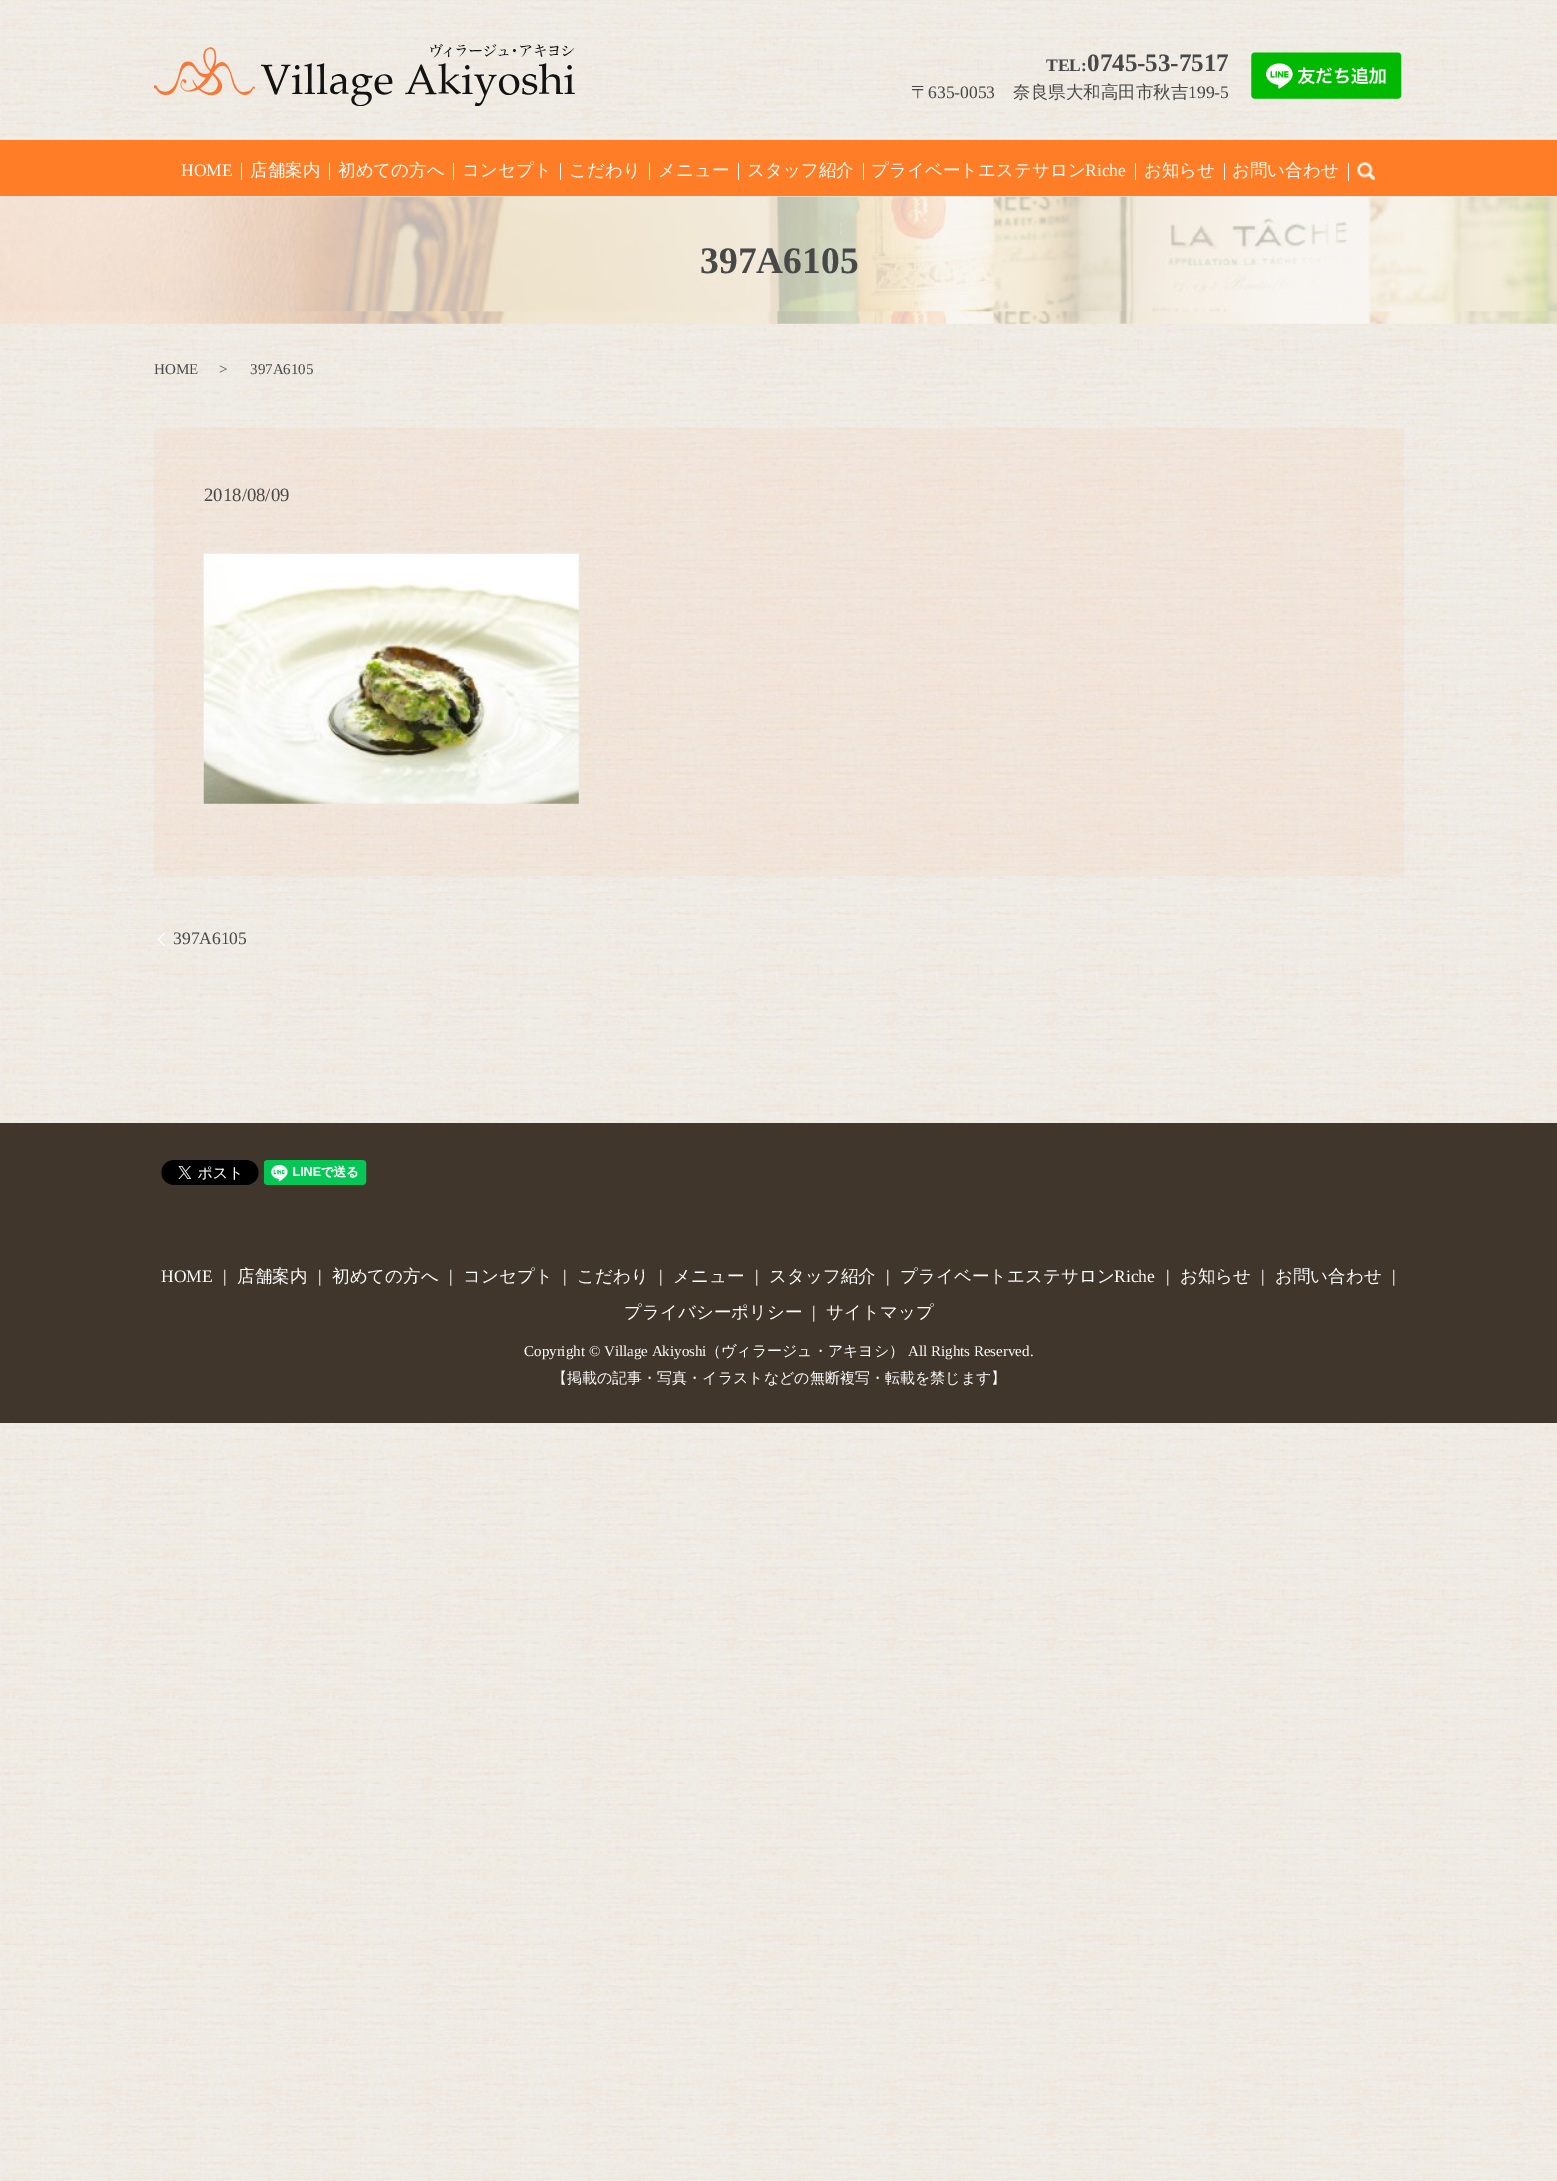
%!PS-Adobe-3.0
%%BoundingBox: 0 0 1557 2181
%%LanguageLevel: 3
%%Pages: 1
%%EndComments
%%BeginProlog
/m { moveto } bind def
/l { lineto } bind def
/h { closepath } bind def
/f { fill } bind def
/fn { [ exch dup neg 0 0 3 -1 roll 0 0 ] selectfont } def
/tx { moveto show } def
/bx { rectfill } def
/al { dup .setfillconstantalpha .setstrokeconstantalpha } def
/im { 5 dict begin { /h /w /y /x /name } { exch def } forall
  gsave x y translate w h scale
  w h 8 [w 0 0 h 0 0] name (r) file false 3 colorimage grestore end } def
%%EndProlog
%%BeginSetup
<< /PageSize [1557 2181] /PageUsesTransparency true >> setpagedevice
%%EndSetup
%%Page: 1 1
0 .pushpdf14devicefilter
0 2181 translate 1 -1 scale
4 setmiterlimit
1 setgray
0 0 1557 2181 bx
(image0.raw) 0 0 1557 2181 im
(image5.raw) 0 196 1557 128 im
(image1.raw) 213 196 1344 1 im
(image2.raw) 154 44 421 62 im
/LiberationSerif-Bold 17.5 fn
0.282 setgray
(TEL:) 1046 71 tx
/LiberationSerif-Bold 25 fn
(0745-53-7517) 1087 71 tx
/WenQuanYiZenHei-Medium 17.5 fn
(〒) 911 98 tx
/LiberationSerif-Regular 17.5 fn
(635-0053) 928 98 tx
/WenQuanYiZenHei-Medium 17.5 fn
(奈良県大和高田市秋吉) 1013 98 tx
/LiberationSerif-Regular 17.5 fn
(199-5) 1188 98 tx
(image3.raw) 1251 52 151 47 im
1 0.49 0.149 setrgbcolor
0 140 1557 56 bx
1 setgray
(HOME) 181 176 tx
241 163 1 17 bx
/WenQuanYiZenHei-Medium 17.5 fn
(店舗案内) 250 176 tx
329 163 1 17 bx
(初めての方へ) 338 176 tx
453 163 1 17 bx
(コンセプト) 462 176 tx
560 163 1 17 bx
(こだわり) 569 176 tx
649 163 1 17 bx
(メニュー) 658 176 tx
738 163 1 17 bx
(スタッフ紹介) 747 176 tx
863 163 1 17 bx
(プライベートエステサロン) 871 176 tx
/LiberationSerif-Regular 17.5 fn
(Riche) 1085 176 tx
1135 163 1 17 bx
/WenQuanYiZenHei-Medium 17.5 fn
(お知らせ) 1144 176 tx
1224 163 1 17 bx
(お問い合わせ) 1232 176 tx
(image4.raw) 1357 162 18 18 im
1348 163 1 18 bx
/LiberationSerif-Bold 37.5 fn
0.282 setgray
(397A6105) 700 273 tx
/LiberationSerif-Regular 15 fn
(HOME) 154 374 tx
(>) 219 374 tx
(397A6105) 250 374 tx
0.05 al
1 0.49 0.149 setrgbcolor
154 428 1250 448 bx
/LiberationSerif-Regular 18.75 fn
1 al
0.282 setgray
(2018/08/09) 204 501 tx
(image6.raw) 203 553 376 251 im
1 setgray
157.5 939.5 m 164.5 932.5 l 165 933 l 158 940.5 l h f
/LiberationSerif-Regular 17.5 fn
0.282 setgray
(397A6105) 173 944 tx
1 setgray
164.5 946.5 m 157.5 939.5 l 158 938.5 l 165 945.5 l h f
0.255 0.212 0.173 setrgbcolor
0 1123 1557 300 bx
(image7.raw) 161 1160 98 25 im
(image8.raw) 263 1160 104 25 im
1 setgray
(|) 223 1282 tx
/WenQuanYiZenHei-Medium 17.5 fn
(店舗案内) 237 1282 tx
/LiberationSerif-Regular 17.5 fn
(|) 318 1282 tx
/WenQuanYiZenHei-Medium 17.5 fn
(初めての方へ) 332 1282 tx
/LiberationSerif-Regular 17.5 fn
(|) 449 1282 tx
/WenQuanYiZenHei-Medium 17.5 fn
(コンセプト) 463 1282 tx
/LiberationSerif-Regular 17.5 fn
(|) 563 1282 tx
/WenQuanYiZenHei-Medium 17.5 fn
(こだわり) 577 1282 tx
/LiberationSerif-Regular 17.5 fn
(|) 755 1282 tx
/WenQuanYiZenHei-Medium 17.5 fn
(スタッフ紹介) 769 1282 tx
/LiberationSerif-Regular 17.5 fn
(|) 886 1282 tx
/WenQuanYiZenHei-Medium 17.5 fn
(プライベートエステサロン) 900 1282 tx
/LiberationSerif-Regular 17.5 fn
(Riche) 1114 1282 tx
(|) 1166 1282 tx
/WenQuanYiZenHei-Medium 17.5 fn
(お知らせ) 1180 1282 tx
/LiberationSerif-Regular 17.5 fn
(|) 1261 1282 tx
/WenQuanYiZenHei-Medium 17.5 fn
(お問い合わせ) 1275 1282 tx
/LiberationSerif-Regular 17.5 fn
(|) 1392 1282 tx
/WenQuanYiZenHei-Medium 17.5 fn
(プライバシーポリシー) 624 1318 tx
/LiberationSerif-Regular 17.5 fn
(HOME) 161 1282 tx
(|) 659 1282 tx
/WenQuanYiZenHei-Medium 17.5 fn
(メニュー) 673 1282 tx
/LiberationSerif-Regular 17.5 fn
(|) 812 1318 tx
/WenQuanYiZenHei-Medium 17.5 fn
(サイトマップ) 826 1318 tx
/LiberationSerif-Regular 15 fn
(Copyright © Village Akiyoshi) 524 1356 tx
/WenQuanYiZenHei-Medium 15 fn
(（ヴィラージュ・アキヨシ）) 706 1356 tx
/LiberationSerif-Regular 15 fn
(All Rights Reserved.) 908 1356 tx
/WenQuanYiZenHei-Medium 15 fn
(【掲載の記事・写真・イラストなどの無断複写・転載を禁じます】) 552 1383 tx
.poppdf14devicefilter showpage
%%EOF
